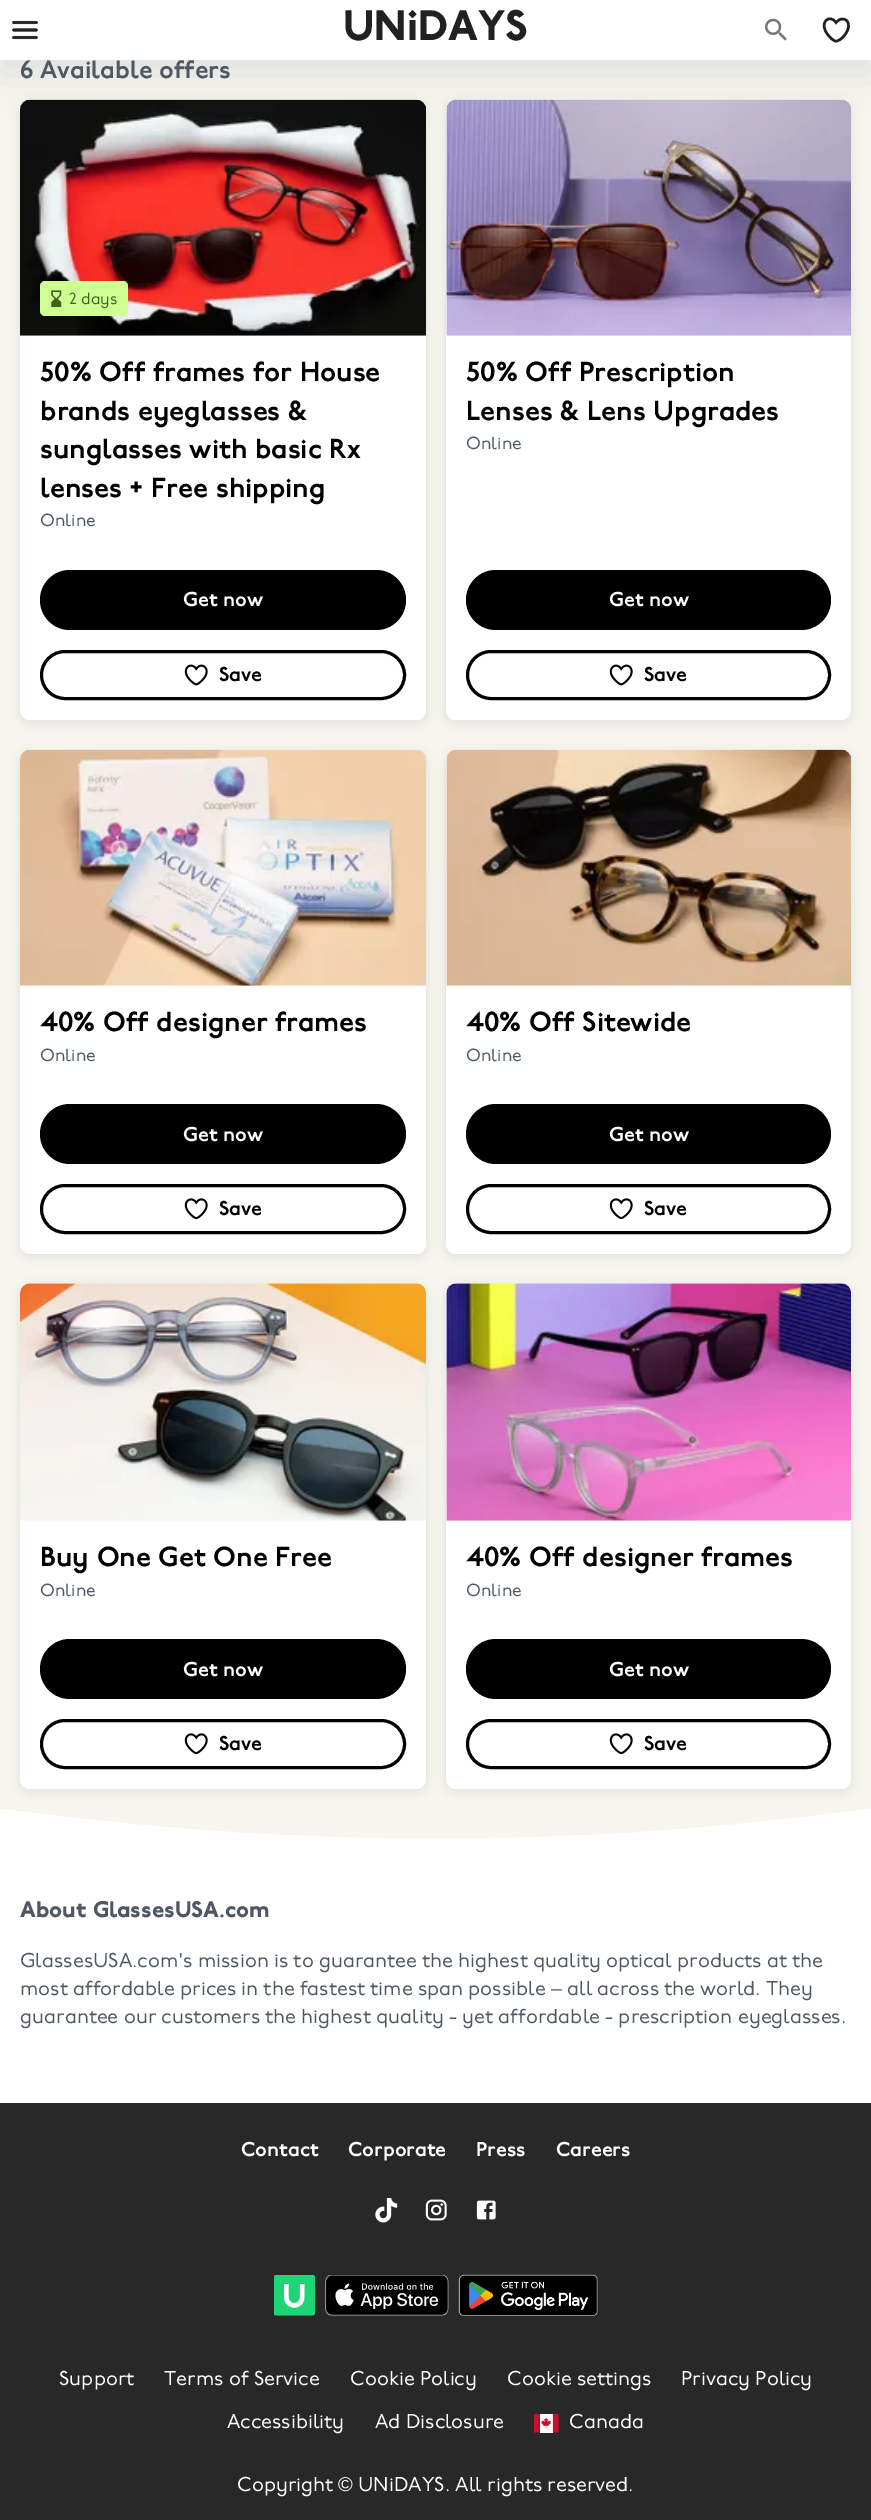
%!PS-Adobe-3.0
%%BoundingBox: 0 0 871 2520
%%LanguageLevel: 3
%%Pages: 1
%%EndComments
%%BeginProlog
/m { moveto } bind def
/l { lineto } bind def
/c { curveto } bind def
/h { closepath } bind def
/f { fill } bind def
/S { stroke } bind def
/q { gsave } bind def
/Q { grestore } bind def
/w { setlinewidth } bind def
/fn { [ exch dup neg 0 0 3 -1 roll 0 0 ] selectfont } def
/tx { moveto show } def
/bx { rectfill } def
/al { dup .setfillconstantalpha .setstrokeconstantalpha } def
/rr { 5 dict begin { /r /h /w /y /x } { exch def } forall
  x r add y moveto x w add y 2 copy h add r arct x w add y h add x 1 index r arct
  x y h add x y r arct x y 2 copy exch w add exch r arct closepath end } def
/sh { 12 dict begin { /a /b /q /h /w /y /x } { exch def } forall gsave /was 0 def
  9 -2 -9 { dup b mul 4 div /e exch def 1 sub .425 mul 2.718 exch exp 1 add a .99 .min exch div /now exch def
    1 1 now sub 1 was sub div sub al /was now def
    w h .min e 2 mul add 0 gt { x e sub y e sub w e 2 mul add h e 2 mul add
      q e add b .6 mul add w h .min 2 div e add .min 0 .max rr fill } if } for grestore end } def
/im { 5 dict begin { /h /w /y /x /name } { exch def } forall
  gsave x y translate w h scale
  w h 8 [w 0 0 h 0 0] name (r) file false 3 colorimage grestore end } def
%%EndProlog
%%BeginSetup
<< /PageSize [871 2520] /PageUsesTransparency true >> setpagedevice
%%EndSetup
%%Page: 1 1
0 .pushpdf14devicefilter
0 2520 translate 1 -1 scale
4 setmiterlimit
1 setgray
0 0 871 2520 bx
0.965 0.961 0.933 setrgbcolor
0 60 871 1779 bx
0 0.176 0.314 setrgbcolor
20 103 406 620 10 5 0.1 sh
1 setgray
20 100 406 620 10 rr f
30 100 m 416 100 l 421.5 100 426 104.5 426 110 c 426 336 l 20 336 l 20 110 l 20 104.5 24.5 100 30 100 c h f
(image2.raw) 20 99 406 237 im
0 0.176 0.314 setrgbcolor
446 103 405 620 10 5 0.1 sh
1 setgray
446 100 405 620 10 rr f
456 100 m 841 100 l 846.5 100 851 104.5 851 110 c 851 336 l 446 336 l 446 110 l 446 104.5 450.5 100 456 100 c h f
(image5.raw) 446 99 405 237 im
0 0.176 0.314 setrgbcolor
0 13 871 60 0 19 0.1 sh
1 setgray
0 0 871 60 bx
(image0.raw) 12 20 26 20 im
/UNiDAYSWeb-Black 42.5 fn
0.129 setgray
(UNiDAYS) 343 40 tx
(image1.raw) 765 18 22 23 im
2.5 w
842.5 19 m 844 19 845.5 19.5 846.5 20.5 c 854 27.5 840 43 835 41 c 832.5 40 830 37.5 828.5 35.5 c 817.5 23 829.5 13 836 22.5 c 838 20 840.5 19 842.5 19 c h S
/UNiDAYSWeb-SemiBold 25 fn
0.31 0.345 0.384 setrgbcolor
(6 Available offers) 20 78 tx
0.808 1 0.576 setrgbcolor
40 281 88 35 5 rr f
(image3.raw) 51 290 11 18 im
/UNiDAYSWeb-Regular 16 fn
0.259 0.384 0.11 setrgbcolor
(2 days) 69 304 tx
/UNiDAYSWeb-SemiBold 27.5 fn
0 setgray
(50% Off frames for House) 40 381 tx
(brands eyeglasses &) 40 420 tx
(sunglasses with basic Rx) 40 458 tx
(lenses + Free shipping) 40 497 tx
/UNiDAYSWeb-Regular 17.5 fn
0.31 0.345 0.384 setrgbcolor
(Online) 40 526 tx
0 setgray
40 570 366 60 30 rr f
/UNiDAYSWeb-SemiBold 20 fn
1 setgray
(Get now) 183 606 tx
0 setgray
3 w
41.5 651.5 363 47 23.5 rr S
(image4.raw) 184 664 24 22 im
(Save) 219 681 tx
/UNiDAYSWeb-SemiBold 27.5 fn
(50% Off Prescription) 466 381 tx
(Lenses & Lens Upgrades) 466 420 tx
/UNiDAYSWeb-Regular 17.5 fn
0.31 0.345 0.384 setrgbcolor
(Online) 466 449 tx
0 setgray
466 570 365 60 30 rr f
/UNiDAYSWeb-SemiBold 20 fn
1 setgray
(Get now) 609 606 tx
0 setgray
467.5 651.5 362 47 23.5 rr S
(image4.raw) 609 664 24 22 im
(Save) 644 681 tx
0 0.176 0.314 setrgbcolor
20 753 406 503 10 5 0.1 sh
1 setgray
20 750 406 504 10 rr f
30 750 m 416 750 l 421.5 750 426 754.5 426 760 c 426 986 l 20 986 l 20 760 l 20 754.5 24.5 750 30 750 c h f
(image6.raw) 20 749 406 237 im
/UNiDAYSWeb-SemiBold 27.5 fn
0 setgray
(40% Off designer frames) 40 1031 tx
/UNiDAYSWeb-Regular 17.5 fn
0.31 0.345 0.384 setrgbcolor
(Online) 40 1061 tx
0 setgray
40 1104 366 60 30 rr f
/UNiDAYSWeb-SemiBold 20 fn
1 setgray
(Get now) 183 1141 tx
0 setgray
41.5 1185.5 363 47 23.5 rr S
(image7.raw) 184 1198 24 22 im
(Save) 219 1215 tx
0 0.176 0.314 setrgbcolor
446 753 405 503 10 5 0.1 sh
1 setgray
446 750 405 504 10 rr f
456 750 m 841 750 l 846.5 750 851 754.5 851 760 c 851 986 l 446 986 l 446 760 l 446 754.5 450.5 750 456 750 c h f
(image8.raw) 446 749 405 237 im
/UNiDAYSWeb-SemiBold 27.5 fn
0 setgray
(40% Off Sitewide) 466 1031 tx
/UNiDAYSWeb-Regular 17.5 fn
0.31 0.345 0.384 setrgbcolor
(Online) 466 1061 tx
0 setgray
466 1104 365 60 30 rr f
/UNiDAYSWeb-SemiBold 20 fn
1 setgray
(Get now) 609 1141 tx
0 setgray
467.5 1185.5 362 47 23.5 rr S
(image7.raw) 609 1198 24 22 im
(Save) 644 1215 tx
0 0.176 0.314 setrgbcolor
20 1286 406 505 10 5 0.1 sh
1 setgray
20 1284 406 505 10 rr f
30 1284 m 416 1284 l 421.5 1284 426 1288.5 426 1294 c 426 1521 l 20 1521 l 20 1294 l 20 1288.5 24.5 1284 30 1284 c h f
(image9.raw) 20 1283 406 238 im
/UNiDAYSWeb-SemiBold 27.5 fn
0 setgray
(Buy One Get One Free) 40 1566 tx
/UNiDAYSWeb-Regular 17.5 fn
0.31 0.345 0.384 setrgbcolor
(Online) 40 1596 tx
0 setgray
40 1639 366 60 30 rr f
/UNiDAYSWeb-SemiBold 20 fn
1 setgray
(Get now) 183 1676 tx
0 setgray
41.5 1720.5 363 47 23.5 rr S
(image7.raw) 184 1733 24 22 im
(Save) 219 1750 tx
0 0.176 0.314 setrgbcolor
446 1286 405 505 10 5 0.1 sh
1 setgray
446 1284 405 505 10 rr f
456 1284 m 841 1284 l 846.5 1284 851 1288.5 851 1294 c 851 1521 l 446 1521 l 446 1294 l 446 1288.5 450.5 1284 456 1284 c h f
(image10.raw) 446 1283 405 238 im
/UNiDAYSWeb-SemiBold 27.5 fn
0 setgray
(40% Off designer frames) 466 1566 tx
/UNiDAYSWeb-Regular 17.5 fn
0.31 0.345 0.384 setrgbcolor
(Online) 466 1596 tx
0 setgray
466 1639 365 60 30 rr f
/UNiDAYSWeb-SemiBold 20 fn
1 setgray
(Get now) 609 1676 tx
0 setgray
467.5 1720.5 362 47 23.5 rr S
(image7.raw) 609 1733 24 22 im
(Save) 644 1750 tx
q
0 1809 871 37 rectclip
1 setgray
0 1809 m 44 1814 l 304 1847 567 1847 827 1814 c 871 1809 l 871 1884 l 0 1884 l h f
Q
/UNiDAYSWeb-Black 22.5 fn
0.31 0.345 0.384 setrgbcolor
(About GlassesUSA.com) 20 1917 tx
/UNiDAYSWeb-Regular 20 fn
(GlassesUSA.com's mission is to guarantee the highest quality optical products at the) 20 1967 tx
(most affordable prices in the fastest time span possible) 20 1995 tx
/LiberationSans-Regular 20 fn
(–) 551 1995 tx
/UNiDAYSWeb-Regular 20 fn
(all across the world. They) 567 1995 tx
(guarantee our customers the highest quality - yet affordable - prescription eyeglasses.) 20 2023 tx
0.157 setgray
0 2103 871 417 bx
/UNiDAYSWeb-SemiBold 20 fn
1 setgray
(Contact) 241 2156 tx
(Corporate) 348 2156 tx
(Press) 476 2156 tx
(Careers) 556 2156 tx
(image11.raw) 375 2198 23 25 im
(image12.raw) 425 2199 22 22 im
(image13.raw) 476 2200 20 20 im
(image14.raw) 274 2275 41 41 im
(image15.raw) 325 2275 124 41 im
(image16.raw) 458 2274 140 42 im
/UNiDAYSWeb-Regular 20 fn
(Support) 59 2385 tx
(Terms of Service) 164 2385 tx
(Cookie Policy) 350 2385 tx
(Cookie settings) 507 2385 tx
(Privacy Policy) 681 2385 tx
(Accessibility) 227 2428 tx
(Ad Disclosure) 375 2428 tx
(image17.raw) 534 2414 25 19 im
(Canada) 569 2428 tx
(Copyright) 237 2491 tx
/LiberationSans-Regular 20 fn
(©) 338 2491 tx
/UNiDAYSWeb-Regular 20 fn
(UNiDAYS. All rights reserved.) 358 2491 tx
.poppdf14devicefilter showpage
%%EOF
